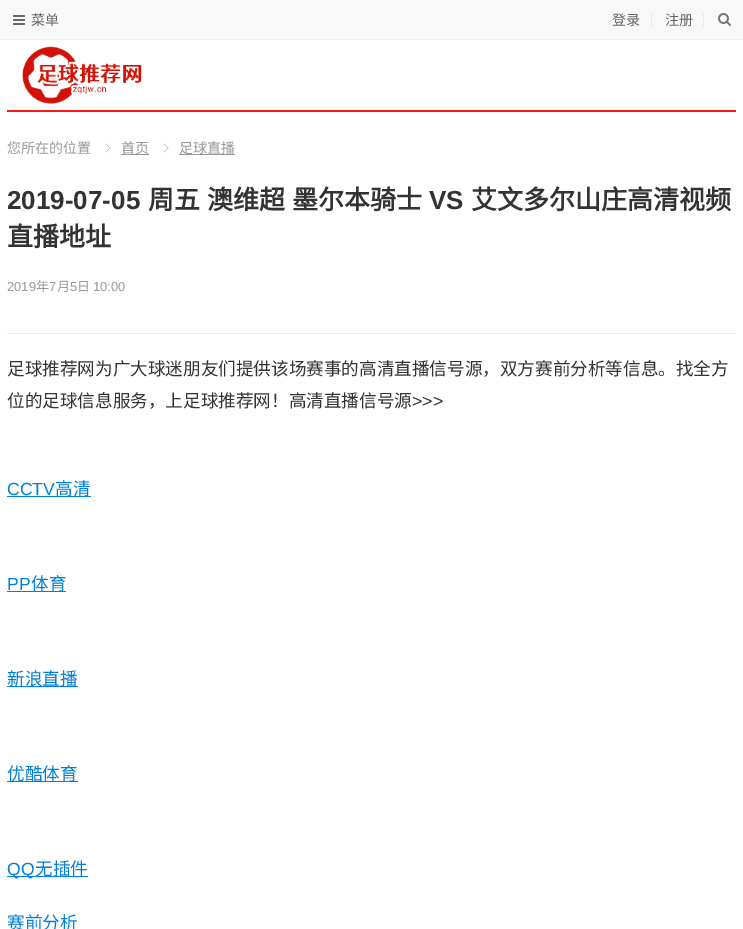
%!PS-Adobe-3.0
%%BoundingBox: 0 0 743 929
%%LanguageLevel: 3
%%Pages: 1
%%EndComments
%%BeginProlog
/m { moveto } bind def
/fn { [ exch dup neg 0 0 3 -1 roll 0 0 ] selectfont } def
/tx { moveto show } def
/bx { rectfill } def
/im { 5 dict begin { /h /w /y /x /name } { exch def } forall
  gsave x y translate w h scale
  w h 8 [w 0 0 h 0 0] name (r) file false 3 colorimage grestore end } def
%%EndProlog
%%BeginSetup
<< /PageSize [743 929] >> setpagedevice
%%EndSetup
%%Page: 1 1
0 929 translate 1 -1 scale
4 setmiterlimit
1 setgray
0 0 743 929 bx
0.973 setgray
0 0 743 39 bx
(image0.raw) 13 15 12 10 im
/NotoSansCJKSC-Regular 14 fn
0.4 setgray
(菜单) 31 25 tx
(image1.raw) 22 46 120 58 im
0.941 setgray
0 39 743 1 bx
0.914 setgray
651 13 1 14 bx
0.4 setgray
(登录) 612 25 tx
0.914 setgray
703 13 1 14 bx
0.4 setgray
(注册) 665 25 tx
(image2.raw) 718 13 13 13 im
1 0.086 0.086 setrgbcolor
7 110 729 2 bx
0.6 setgray
(您所在的位置) 7 153 tx
(image3.raw) 105 143 6 10 im
121 154 28 1 bx
(首页) 121 153 tx
(image4.raw) 163 143 6 10 im
179 154 56 1 bx
(足球直播) 179 153 tx
0.914 setgray
7 333 729 1 bx
/LiberationSans-Bold 26 fn
0.2 setgray
(2019-07-05) 7 209 tx
/NotoSansCJKSC-Bold 26 fn
148 209 m 1 0 32 (周五 澳维超 墨尔本骑士) widthshow
/LiberationSans-Bold 26 fn
(VS) 429 209 tx
/NotoSansCJKSC-Bold 26 fn
(艾文多尔山庄高清视频) 471 209 tx
(直播地址) 7 246 tx
/LiberationSans-Regular 13 fn
0.6 setgray
(2019) 7 291 tx
/NotoSansCJKSC-Regular 13 fn
(年) 36 291 tx
/LiberationSans-Regular 13 fn
(7) 49 291 tx
/NotoSansCJKSC-Regular 13 fn
(月) 57 291 tx
/LiberationSans-Regular 13 fn
(5) 70 291 tx
/NotoSansCJKSC-Regular 13 fn
(日) 77 291 tx
/LiberationSans-Regular 13 fn
(10:00) 93 291 tx
/NotoSansCJKSC-Regular 17.6 fn
0.2 setgray
(足球推荐网为广大球迷朋友们提供该场赛事的高清直播信号源，双方赛前分析等信息。找全方) 7 375 tx
(位的足球信息服务，上足球推荐网！高清直播信号源) 7 407 tx
/LiberationSans-Regular 17.6 fn
(>>>) 412 407 tx
0 0.498 0.859 setrgbcolor
(CCTV) 7 495 tx
7 496 84 1 bx
/NotoSansCJKSC-Regular 17.6 fn
(高清) 55 495 tx
/LiberationSans-Regular 17.6 fn
(PP) 7 590 tx
7 591 59 1 bx
/NotoSansCJKSC-Regular 17.6 fn
(体育) 31 590 tx
7 686 71 1 bx
(新浪直播) 7 685 tx
7 781 71 1 bx
(优酷体育) 7 780 tx
7 876 81 1 bx
/LiberationSans-Regular 17.6 fn
(QQ) 7 875 tx
/NotoSansCJKSC-Regular 17.6 fn
(无插件) 35 875 tx
(赛前分析) 7 929 tx
showpage
%%EOF
